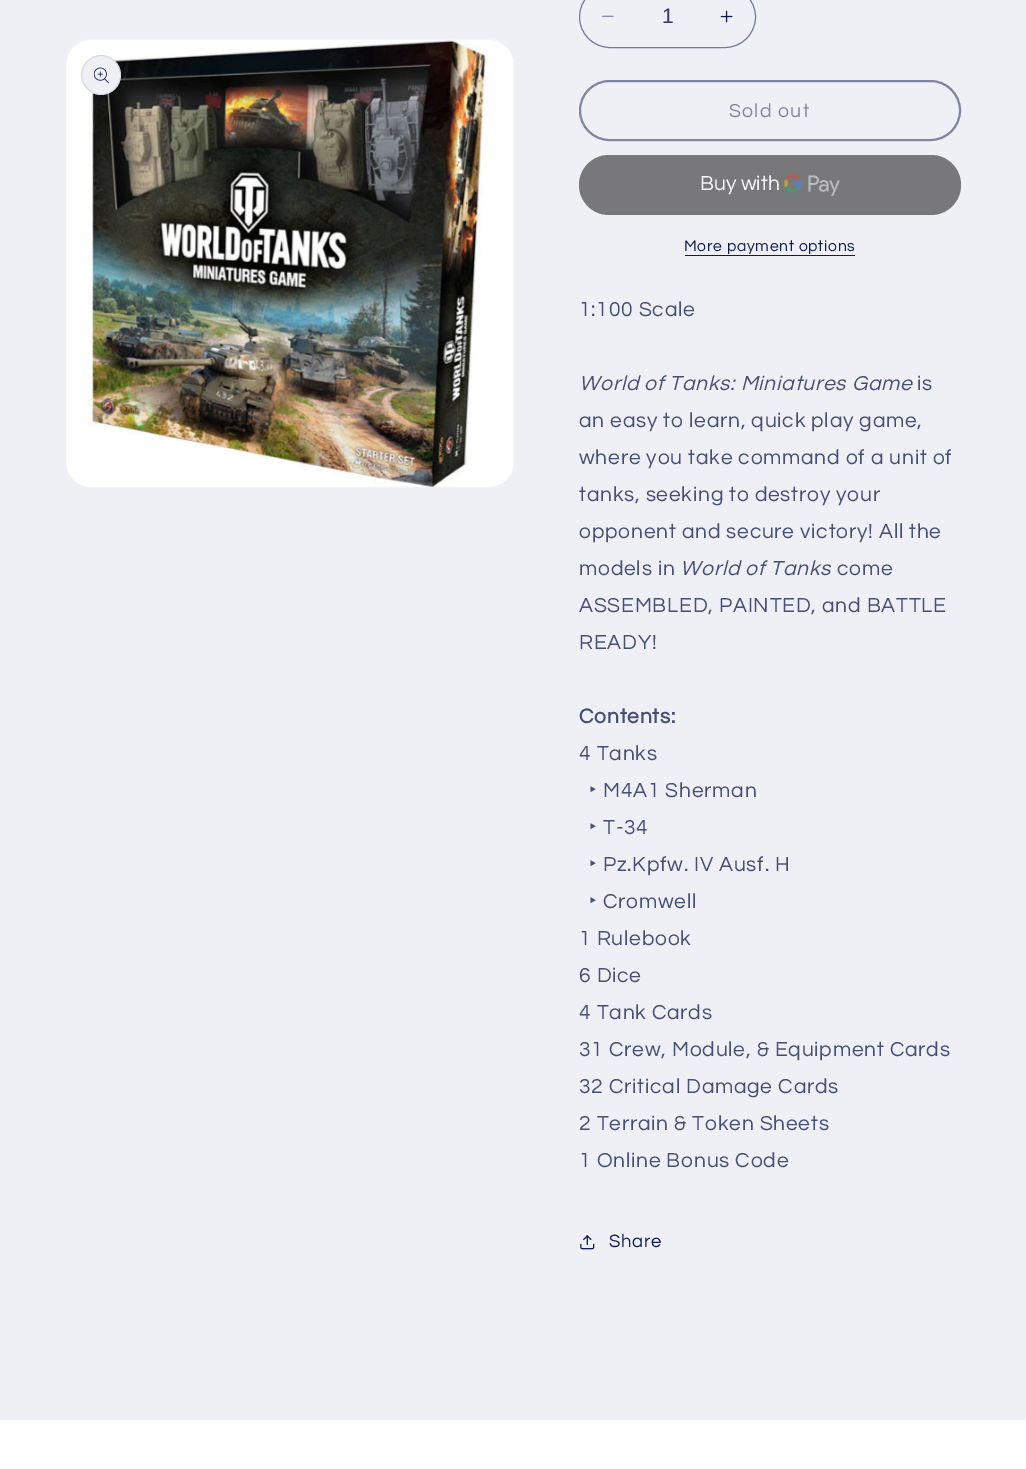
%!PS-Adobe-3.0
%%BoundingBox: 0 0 1026 1469
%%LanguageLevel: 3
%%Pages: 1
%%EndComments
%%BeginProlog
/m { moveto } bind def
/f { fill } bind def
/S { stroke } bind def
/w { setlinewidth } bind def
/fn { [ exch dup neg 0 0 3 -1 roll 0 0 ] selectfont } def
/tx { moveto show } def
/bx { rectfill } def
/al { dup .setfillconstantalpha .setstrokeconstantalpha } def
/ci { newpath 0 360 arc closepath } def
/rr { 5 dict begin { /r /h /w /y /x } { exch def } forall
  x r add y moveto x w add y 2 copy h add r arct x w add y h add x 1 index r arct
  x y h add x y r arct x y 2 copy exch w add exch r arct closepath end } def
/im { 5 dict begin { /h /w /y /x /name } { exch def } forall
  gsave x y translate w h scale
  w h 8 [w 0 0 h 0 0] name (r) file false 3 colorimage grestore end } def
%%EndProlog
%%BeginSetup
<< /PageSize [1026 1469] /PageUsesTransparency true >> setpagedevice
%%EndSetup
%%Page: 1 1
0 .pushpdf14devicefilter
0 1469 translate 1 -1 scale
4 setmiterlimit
0.937 0.941 0.961 setrgbcolor
0 0 1026 1469 bx
(image0.raw) 66 39 448 449 im
101 75 20 ci f
0.1 al
0.055 0.106 0.302 setrgbcolor
101 75 19.5 ci S
1 al
(image1.raw) 94 67 15 17 im
(image2.raw) 602 15 12 2 im
(image3.raw) 720 10 13 13 im
0.451 0.482 0.6 setrgbcolor
579.5 -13.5 176 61 30.5 rr S
/LiberationSans-Regular 21 fn
0.188 0.231 0.4 setrgbcolor
(1) 662 23 tx
0.498 0.525 0.631 setrgbcolor
2 w
580 81 380 59 29.5 rr S
/Questrial-Regular 19.5 fn
729 117 m 1.25 0 (Sold out) ashow
0.471 0.471 0.482 setrgbcolor
579 155 382 60 30 rr f
/Questrial-Regular 21 fn
0.969 0.973 0.98 setrgbcolor
(Buy with) 700 190 tx
(image4.raw) 784 174 56 22 im
/Questrial-Regular 15.75 fn
0.055 0.106 0.302 setrgbcolor
684 251 m 0.7 0 (More payment options) ashow
685 255 170 1 bx
/Questrial-Regular 21 fn
0.275 0.314 0.467 setrgbcolor
579 316 m 0.8 0 (1:100 Scale) ashow
/Questrial-Italic 21 fn
579 390 m 0.8 0 (World of Tanks: Miniatures Game) ashow
/Questrial-Regular 21 fn
917 390 m 0.8 0 (is) ashow
579 427 m 0.8 0 (an easy to learn, quick play game,) ashow
579 464 m 0.8 0 (where you take command of a unit of) ashow
579 501 m 0.8 0 (tanks, seeking to destroy your) ashow
579 538 m 0.8 0 (opponent and secure victory! All the) ashow
579 575 m 0.8 0 (models in) ashow
/Questrial-Italic 21 fn
680 575 m 0.8 0 (World of Tanks) ashow
/Questrial-Regular 21 fn
837 575 m 0.8 0 (come) ashow
579 612 m 0.8 0 (ASSEMBLED, PAINTED, and BATTLE) ashow
579 649 m 0.8 0 (READY!) ashow
/Questrial-Bold 21 fn
579 723 m 0.8 0 (Contents:) ashow
/Questrial-Regular 21 fn
579 760 m 0.8 0 (4 Tanks) ashow
/NotoSans-Regular 21 fn
589 797 m 0.8 0 (‣) ashow
/Questrial-Regular 21 fn
603 797 m 0.8 0 (M4A1 Sherman) ashow
/NotoSans-Regular 21 fn
589 834 m 0.8 0 (‣) ashow
/Questrial-Regular 21 fn
603 834 m 0.8 0 (T-34) ashow
/NotoSans-Regular 21 fn
589 871 m 0.8 0 (‣) ashow
/Questrial-Regular 21 fn
603 871 m 0.8 0 (Pz.Kpfw. IV Ausf. H) ashow
/NotoSans-Regular 21 fn
589 908 m 0.8 0 (‣) ashow
/Questrial-Regular 21 fn
603 908 m 0.8 0 (Cromwell) ashow
579 945 m 0.8 0 (1 Rulebook) ashow
579 982 m 0.8 0 (6 Dice) ashow
579 1019 m 0.8 0 (4 Tank Cards) ashow
579 1056 m 0.8 0 (31 Crew, Module, & Equipment Cards) ashow
579 1093 m 0.8 0 (32 Critical Damage Cards) ashow
579 1130 m 0.8 0 (2 Terrain & Token Sheets) ashow
579 1167 m 0.8 0 (1 Online Bonus Code) ashow
(image5.raw) 580 1235 15 15 im
/Questrial-Regular 18.5 fn
0.055 0.106 0.302 setrgbcolor
609 1247 m 0.8 0 (Share) ashow
1 setgray
0 1420 1026 49 bx
.poppdf14devicefilter showpage
%%EOF
